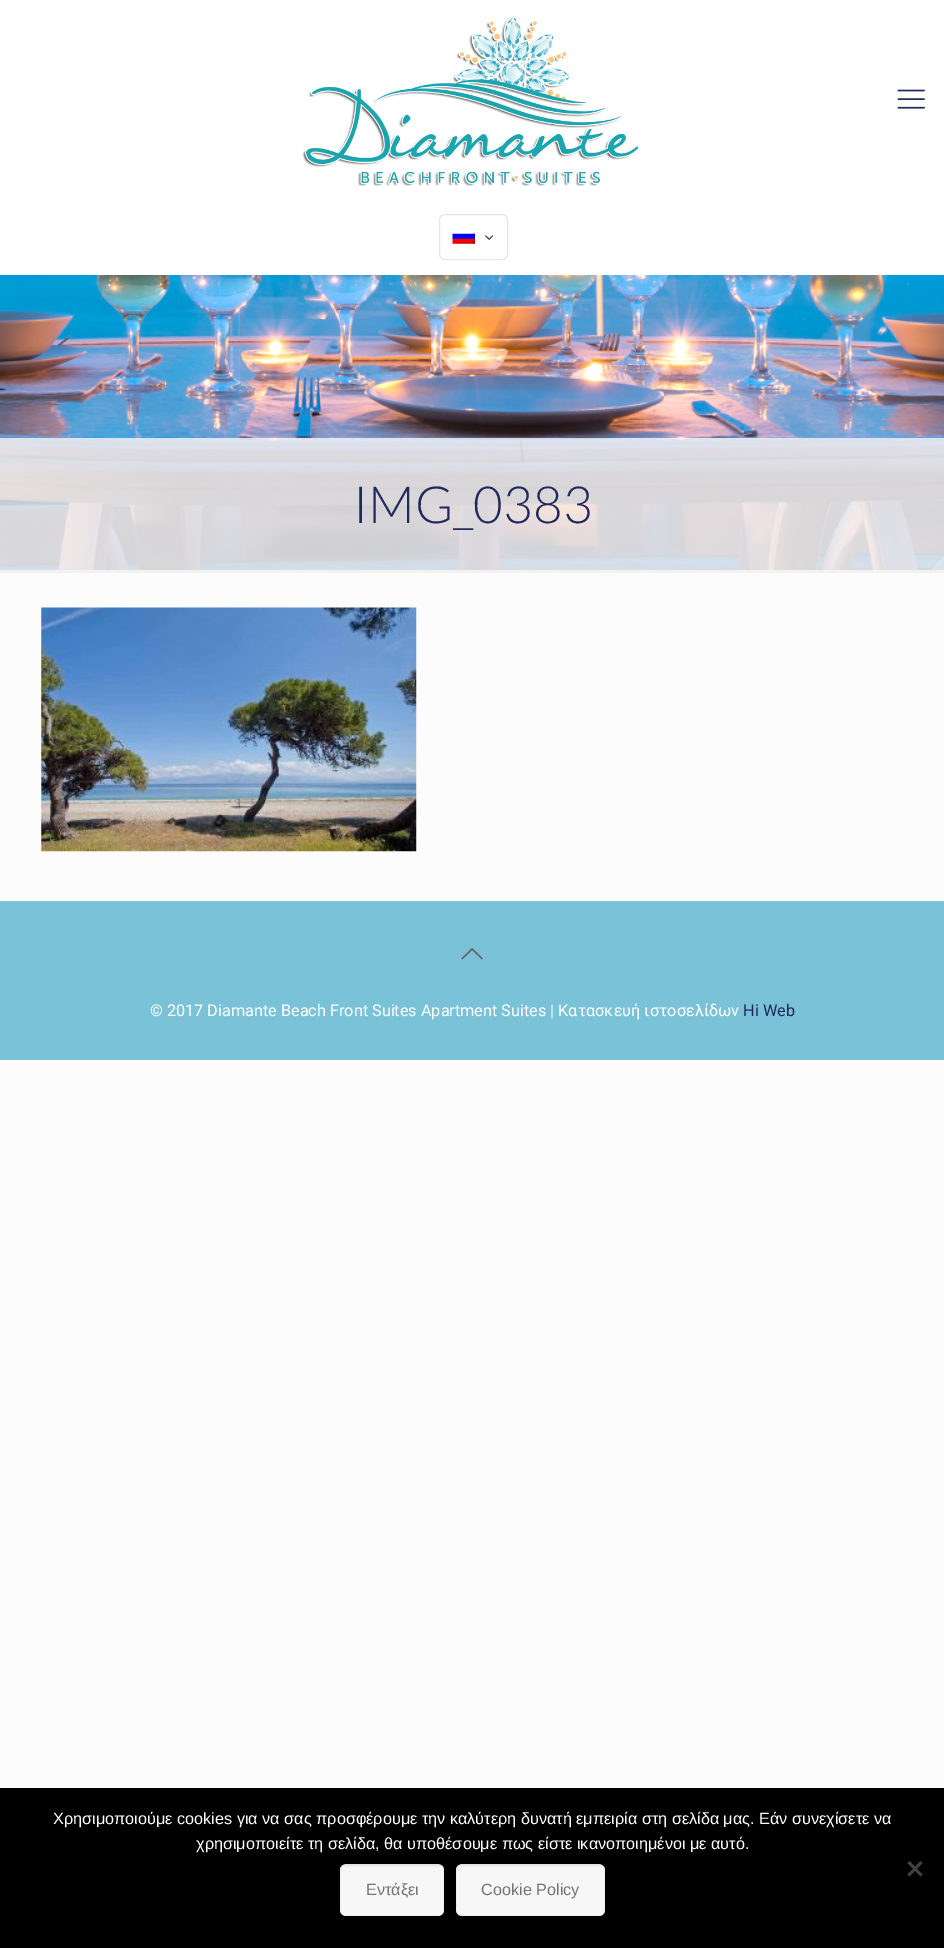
%!PS-Adobe-3.0
%%BoundingBox: 0 0 944 1948
%%LanguageLevel: 3
%%Pages: 1
%%EndComments
%%BeginProlog
/m { moveto } bind def
/l { lineto } bind def
/h { closepath } bind def
/f { fill } bind def
/S { stroke } bind def
/fn { [ exch dup neg 0 0 3 -1 roll 0 0 ] selectfont } def
/tx { moveto show } def
/bx { rectfill } def
/al { dup .setfillconstantalpha .setstrokeconstantalpha } def
/rr { 5 dict begin { /r /h /w /y /x } { exch def } forall
  x r add y moveto x w add y 2 copy h add r arct x w add y h add x 1 index r arct
  x y h add x y r arct x y 2 copy exch w add exch r arct closepath end } def
/im { 5 dict begin { /h /w /y /x /name } { exch def } forall
  gsave x y translate w h scale
  w h 8 [w 0 0 h 0 0] name (r) file false 3 colorimage grestore end } def
%%EndProlog
%%BeginSetup
<< /PageSize [944 1948] /PageUsesTransparency true >> setpagedevice
%%EndSetup
%%Page: 1 1
0 .pushpdf14devicefilter
0 1948 translate 1 -1 scale
4 setmiterlimit
0.988 setgray
0 0 944 1948 bx
(image0.raw) 0 275 944 295 im
1 setgray
0 0 944 275 bx
(image1.raw) 302 16 336 170 im
(image2.raw) 897 89 28 20 im
0.902 setgray
439.5 214.5 68 45 5.5 rr S
(image3.raw) 452 231 23 13 im
(image4.raw) 485 235 9 5 im
0.8 al
0.969 setgray
0 438 944 132 bx
/Lato-Light 51.25 fn
1 al
0.125 0.161 0.357 setrgbcolor
(IMG_0383) 353 523 tx
0.949 setgray
0 570 944 3 bx
(image5.raw) 41 607 376 245 im
0.478 0.761 0.843 setrgbcolor
0 902 944 158 bx
0.529 0.784 0.859 setrgbcolor
0 901 944 1 bx
(image6.raw) 461 948 22 12 im
/Roboto-Regular 16.25 fn
1 setgray
(© 2017 Diamante Beach Front Suites Apartment Suites | Κατασκευή ιστοσελίδων) 150 1016 tx
0.125 0.161 0.357 setrgbcolor
(Hi Web) 743 1016 tx
0 setgray
0 1788 944 160 bx
/LiberationSans-Regular 16.25 fn
1 setgray
(Χρησιμοποιούμε cookies για να σας προσφέρουμε την καλύτερη δυνατή εμπειρία στη σελίδα μας. Εάν συνεχίσετε να) 53 1824 tx
(χρησιμοποιείτε τη σελίδα, θα υποθέσουμε πως είστε ικανοποιημένοι με αυτό.) 196 1849 tx
0.251 setgray
920.5 1861 m 922.5 1863 l 909.5 1876.5 l 907.5 1874.5 l h f
907.5 1863 m 909.5 1861 l 922.5 1874.5 l 920.5 1876.5 l h f
0.969 setgray
340 1864 104 52 6 rr f
(image7.raw) 341 1864 101 3 im
0.03 al
0 setgray
340.5 1864.5 103 51 rectstroke
1 al
0.455 setgray
(Εντάξει) 366 1895 tx
0.969 setgray
456 1864 149 52 6 rr f
(image8.raw) 458 1864 146 3 im
0.03 al
0 setgray
456.5 1864.5 148 51 rectstroke
1 al
0.455 setgray
(Cookie Policy) 481 1895 tx
.poppdf14devicefilter showpage
%%EOF
